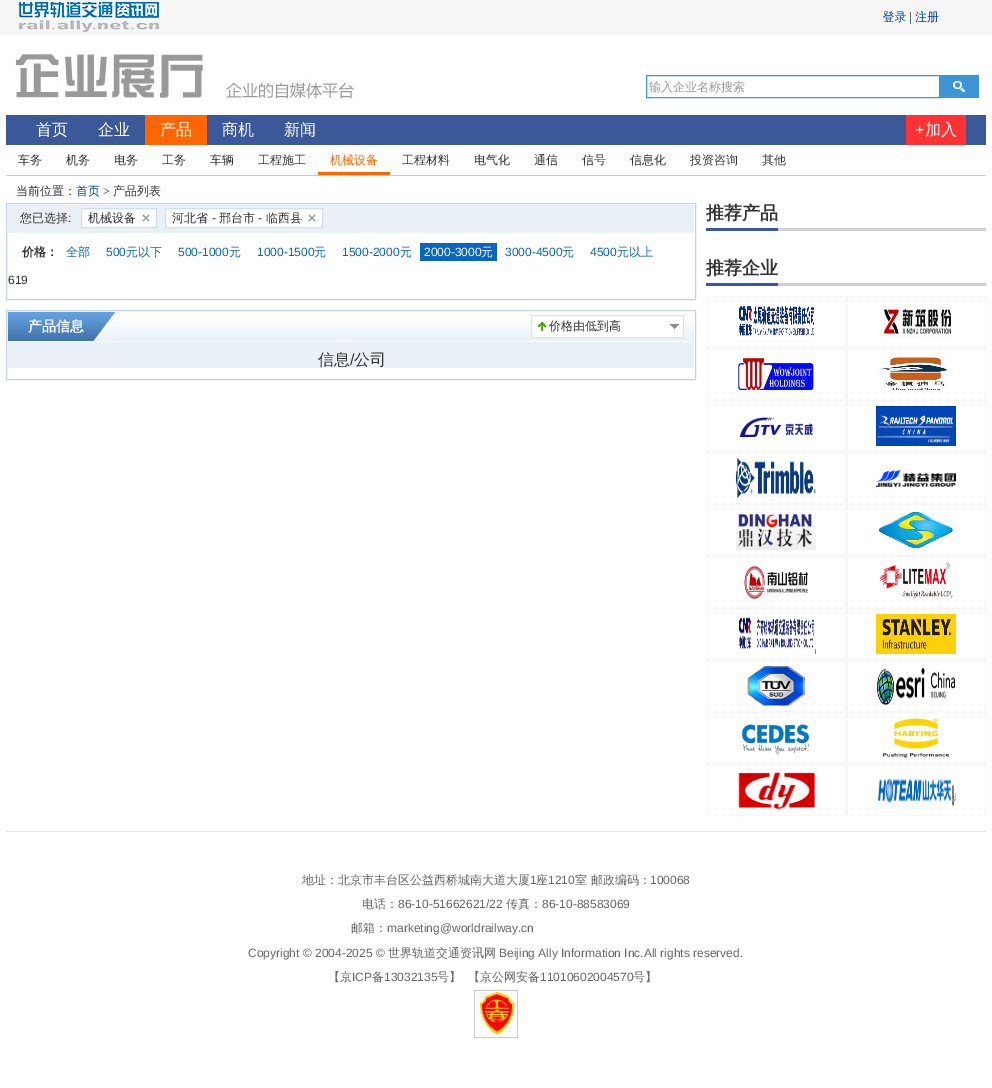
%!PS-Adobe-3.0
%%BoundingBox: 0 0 992 1088
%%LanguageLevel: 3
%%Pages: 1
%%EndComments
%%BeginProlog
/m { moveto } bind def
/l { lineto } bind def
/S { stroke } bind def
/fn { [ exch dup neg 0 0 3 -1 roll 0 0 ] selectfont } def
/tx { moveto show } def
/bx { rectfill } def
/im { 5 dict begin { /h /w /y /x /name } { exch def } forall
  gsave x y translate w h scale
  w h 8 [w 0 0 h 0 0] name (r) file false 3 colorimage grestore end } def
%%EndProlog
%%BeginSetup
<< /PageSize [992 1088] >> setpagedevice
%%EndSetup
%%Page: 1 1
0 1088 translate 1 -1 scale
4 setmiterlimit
1 setgray
0 0 992 1088 bx
0.965 setgray
0 0 992 35 bx
(image0.raw) 18 2 141 30 im
(image1.raw) 882 10 57 14 im
(image2.raw) 14 51 343 48 im
0.239 0.584 0.835 setrgbcolor
646.5 75.5 295 22 rectstroke
/WenQuanYiZenHei-Medium 12 fn
0.6 setgray
(输入企业名称搜索) 649 91 tx
(image3.raw) 939 75 40 23 im
0.231 0.349 0.596 setrgbcolor
6 115 980 30 bx
/WenQuanYiZenHei-Medium 16 fn
1 setgray
(首页) 36 135 tx
(企业) 98 135 tx
1 0.4 0 setrgbcolor
145 115 62 30 bx
1 setgray
(产品) 160 135 tx
(商机) 222 135 tx
(新闻) 284 135 tx
1 0.2 0.2 setrgbcolor
906 115 60 30 bx
/LiberationSans-Regular 16 fn
1 setgray
(+) 915 135 tx
/WenQuanYiZenHei-Medium 16 fn
(加入) 925 135 tx
0.8 setgray
6 175 980 1 bx
/WenQuanYiZenHei-Medium 12 fn
0.2 setgray
(车务) 18 164 tx
(机务) 66 164 tx
(电务) 114 164 tx
(工务) 162 164 tx
(车辆) 210 164 tx
(工程施工) 258 164 tx
1 0.4 0 setrgbcolor
318 172 72 3 bx
(机械设备) 330 164 tx
0.2 setgray
(工程材料) 402 164 tx
(电气化) 474 164 tx
(通信) 534 164 tx
(信号) 582 164 tx
(信息化) 630 164 tx
(投资咨询) 690 164 tx
(其他) 762 164 tx
(当前位置：) 16 195 tx
0 0.267 0.6 setrgbcolor
(首页) 76 195 tx
/LiberationSerif-Regular 12 fn
0.2 setgray
(>) 103 195 tx
/WenQuanYiZenHei-Medium 12 fn
(产品列表) 113 195 tx
0.765 0.831 0.906 setrgbcolor
6.5 203.5 689 96 rectstroke
0.918 0.941 0.969 setrgbcolor
8 205 686 28 bx
0.2 setgray
(您已选择) 20 222 tx
/LiberationSans-Regular 12 fn
(:) 68 222 tx
1 setgray
82 209 74 18 bx
(image4.raw) 142 214 8 8 im
0.824 0.871 0.922 setrgbcolor
81.5 208.5 75 19 rectstroke
/WenQuanYiZenHei-Medium 12 fn
0.2 setgray
(机械设备) 88 222 tx
1 setgray
166 209 156 18 bx
(image4.raw) 308 214 8 8 im
0.824 0.871 0.922 setrgbcolor
165.5 208.5 157 19 rectstroke
0.2 setgray
(河北省) 172 222 tx
/LiberationSans-Regular 12 fn
(-) 212 222 tx
/WenQuanYiZenHei-Medium 12 fn
(邢台市) 219 222 tx
/LiberationSans-Regular 12 fn
(-) 258 222 tx
/WenQuanYiZenHei-Medium 12 fn
(临西县) 266 222 tx
/WenQuanYiZenHei-Bold 12 fn
(价格：) 22 256 tx
/WenQuanYiZenHei-Medium 12 fn
0.035 0.4 0.745 setrgbcolor
(全部) 66 256 tx
/LiberationSans-Regular 12 fn
(500) 106 256 tx
/WenQuanYiZenHei-Medium 12 fn
(元以下) 126 256 tx
/LiberationSans-Regular 12 fn
(500-1000) 178 256 tx
/WenQuanYiZenHei-Medium 12 fn
(元) 229 256 tx
/LiberationSans-Regular 12 fn
(1000-1500) 257 256 tx
/WenQuanYiZenHei-Medium 12 fn
(元) 314 256 tx
/LiberationSans-Regular 12 fn
(1500-2000) 342 256 tx
/WenQuanYiZenHei-Medium 12 fn
(元) 400 256 tx
420 243 77 18 bx
/LiberationSans-Regular 12 fn
1 setgray
(2000-3000) 424 256 tx
/WenQuanYiZenHei-Medium 12 fn
(元) 481 256 tx
/LiberationSans-Regular 12 fn
0.035 0.4 0.745 setrgbcolor
(3000-4500) 505 256 tx
/WenQuanYiZenHei-Medium 12 fn
(元) 562 256 tx
/LiberationSans-Regular 12 fn
(4500) 590 256 tx
/WenQuanYiZenHei-Medium 12 fn
(元以上) 617 256 tx
/LiberationSans-Regular 12 fn
0.2 setgray
(619) 8 284 tx
0.765 0.831 0.906 setrgbcolor
6.5 310.5 689 69 rectstroke
(image5.raw) 116 321 578 20 im
(image6.raw) 8 312 108 29 im
/WenQuanYiZenHei-Bold 14 fn
1 setgray
(产品信息) 28 331 tx
532 321 151 16 bx
(image7.raw) 670 324 9 5 im
0.843 0.898 0.949 setrgbcolor
531.5 315.5 152 22 rectstroke
(image8.raw) 538 322 8 9 im
/WenQuanYiZenHei-Medium 12 fn
0.2 setgray
(价格由低到高) 549 330 tx
0.914 0.941 0.973 setrgbcolor
8 342 686 26 bx
/WenQuanYiZenHei-Medium 16 fn
0.2 setgray
(信息) 318 365 tx
/LiberationSans-Regular 16 fn
(/) 350 365 tx
/WenQuanYiZenHei-Medium 16 fn
(公司) 354 365 tx
0.816 setgray
778 228 208 3 bx
0.231 0.349 0.596 setrgbcolor
706 228 72 3 bx
/WenQuanYiZenHei-Bold 18 fn
0.2 setgray
(推荐产品) 706 219 tx
0.816 setgray
778 283 208 3 bx
0.231 0.349 0.596 setrgbcolor
706 283 72 3 bx
0.2 setgray
(推荐企业) 706 274 tx
0.945 setgray
[1 1] 0 setdash
706 296.5 m 846 296.5 l S
845.5 296 m 845.5 348 l S
706 347.5 m 846 347.5 l S
706.5 296 m 706.5 348 l S
(image9.raw) 736 306 80 36 im
846 296.5 m 986 296.5 l S
985.5 296 m 985.5 348 l S
846 347.5 m 986 347.5 l S
846.5 296 m 846.5 348 l S
(image10.raw) 882 305 70 34 im
706 348.5 m 846 348.5 l S
845.5 348 m 845.5 400 l S
706 399.5 m 846 399.5 l S
706.5 348 m 706.5 400 l S
(image11.raw) 736 357 79 37 im
846 348.5 m 986 348.5 l S
985.5 348 m 985.5 400 l S
846 399.5 m 986 399.5 l S
846.5 348 m 846.5 400 l S
(image12.raw) 876 356 74 36 im
706 400.5 m 846 400.5 l S
845.5 400 m 845.5 452 l S
706 451.5 m 846 451.5 l S
706.5 400 m 706.5 452 l S
(image13.raw) 739 417 74 21 im
846 400.5 m 986 400.5 l S
985.5 400 m 985.5 452 l S
846 451.5 m 986 451.5 l S
846.5 400 m 846.5 452 l S
(image14.raw) 876 406 80 40 im
706 452.5 m 846 452.5 l S
845.5 452 m 845.5 504 l S
706 503.5 m 846 503.5 l S
706.5 452 m 706.5 504 l S
(image15.raw) 736 458 80 40 im
846 452.5 m 986 452.5 l S
985.5 452 m 985.5 504 l S
846 503.5 m 986 503.5 l S
846.5 452 m 846.5 504 l S
(image16.raw) 876 469 80 18 im
706 504.5 m 846 504.5 l S
845.5 504 m 845.5 556 l S
706 555.5 m 846 555.5 l S
706.5 504 m 706.5 556 l S
(image17.raw) 736 514 80 36 im
846 504.5 m 986 504.5 l S
985.5 504 m 985.5 556 l S
846 555.5 m 986 555.5 l S
846.5 504 m 846.5 556 l S
(image18.raw) 878 512 75 37 im
706 556.5 m 846 556.5 l S
845.5 556 m 845.5 608 l S
706 607.5 m 846 607.5 l S
706.5 556 m 706.5 608 l S
(image19.raw) 744 565 64 35 im
846 556.5 m 986 556.5 l S
985.5 556 m 985.5 608 l S
846 607.5 m 986 607.5 l S
846.5 556 m 846.5 608 l S
(image20.raw) 880 562 73 37 im
706 608.5 m 846 608.5 l S
845.5 608 m 845.5 660 l S
706 659.5 m 846 659.5 l S
706.5 608 m 706.5 660 l S
(image21.raw) 739 617 77 37 im
846 608.5 m 986 608.5 l S
985.5 608 m 985.5 660 l S
846 659.5 m 986 659.5 l S
846.5 608 m 846.5 660 l S
(image22.raw) 876 614 80 40 im
706 660.5 m 846 660.5 l S
845.5 660 m 845.5 712 l S
706 711.5 m 846 711.5 l S
706.5 660 m 706.5 712 l S
(image23.raw) 747 666 58 40 im
846 660.5 m 986 660.5 l S
985.5 660 m 985.5 712 l S
846 711.5 m 986 711.5 l S
846.5 660 m 846.5 712 l S
(image24.raw) 877 667 78 39 im
706 712.5 m 846 712.5 l S
845.5 712 m 845.5 764 l S
706 763.5 m 846 763.5 l S
706.5 712 m 706.5 764 l S
(image25.raw) 741 723 70 32 im
846 712.5 m 986 712.5 l S
985.5 712 m 985.5 764 l S
846 763.5 m 986 763.5 l S
846.5 712 m 846.5 764 l S
(image26.raw) 883 718 67 40 im
706 764.5 m 846 764.5 l S
845.5 764 m 845.5 816 l S
706 815.5 m 846 815.5 l S
706.5 764 m 706.5 816 l S
(image27.raw) 738 772 78 38 im
846 764.5 m 986 764.5 l S
985.5 764 m 985.5 816 l S
846 815.5 m 986 815.5 l S
846.5 764 m 846.5 816 l S
(image28.raw) 878 777 78 29 im
0.859 0.906 0.929 setrgbcolor
6 831 980 1 bx
/WenQuanYiZenHei-Medium 12 fn
0.4 setgray
(地址：北京市丰台区公益西桥城南大道大厦) 302 884 tx
/LiberationSans-Regular 12 fn
(1) 530 884 tx
/WenQuanYiZenHei-Medium 12 fn
(座) 536 884 tx
/LiberationSans-Regular 12 fn
(1210) 548 884 tx
/WenQuanYiZenHei-Medium 12 fn
(室 邮政编码：) 575 884 tx
/LiberationSans-Regular 12 fn
(100068) 650 884 tx
/WenQuanYiZenHei-Medium 12 fn
(电话：) 362 908 tx
/LiberationSans-Regular 12 fn
(86-10-51662621/22) 398 908 tx
/WenQuanYiZenHei-Medium 12 fn
(传真：) 506 908 tx
/LiberationSans-Regular 12 fn
(86-10-88583069) 542 908 tx
/WenQuanYiZenHei-Medium 12 fn
(邮箱：) 351 932 tx
/LiberationSans-Regular 12 fn
(marketing@worldrailway.cn) 387 932 tx
(Copyright © 2004-2025 ©) 248 957 tx
/WenQuanYiZenHei-Medium 12 fn
(世界轨道交通资讯网) 388 957 tx
/LiberationSans-Regular 12 fn
(Beijing Ally Information Inc.All rights reserved.) 499 957 tx
/WenQuanYiZenHei-Medium 12 fn
(【京) 328 981 tx
/LiberationSans-Regular 12 fn
(ICP) 352 981 tx
/WenQuanYiZenHei-Medium 12 fn
(备) 372 981 tx
/LiberationSans-Regular 12 fn
(13032135) 384 981 tx
/WenQuanYiZenHei-Medium 12 fn
(号】) 437 981 tx
(【京公网安备) 468 981 tx
/LiberationSans-Regular 12 fn
(11010602004570) 540 981 tx
/WenQuanYiZenHei-Medium 12 fn
(号】) 633 981 tx
(image29.raw) 474 989 45 49 im
showpage
%%EOF
